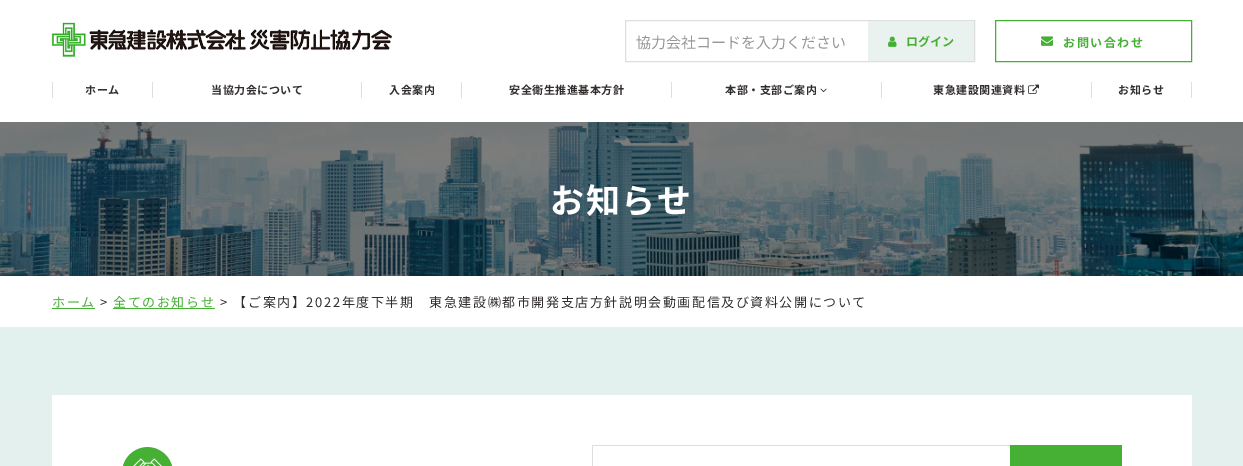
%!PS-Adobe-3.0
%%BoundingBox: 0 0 1243 466
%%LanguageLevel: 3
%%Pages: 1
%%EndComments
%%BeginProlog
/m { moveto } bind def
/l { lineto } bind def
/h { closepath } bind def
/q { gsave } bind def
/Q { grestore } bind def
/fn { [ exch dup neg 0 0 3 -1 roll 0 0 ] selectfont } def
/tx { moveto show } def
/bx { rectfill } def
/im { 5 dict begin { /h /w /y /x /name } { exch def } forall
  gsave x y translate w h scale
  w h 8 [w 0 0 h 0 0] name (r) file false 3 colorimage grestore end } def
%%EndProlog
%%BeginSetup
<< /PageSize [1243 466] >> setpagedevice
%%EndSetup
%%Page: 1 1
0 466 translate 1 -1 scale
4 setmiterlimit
1 setgray
0 0 1243 466 bx
(image0.raw) 51 22 341 35 im
0.871 setgray
625.5 20.5 349 41 rectstroke
/NotoSansJP-Regular 15 fn
0.6 0.592 0.588 setrgbcolor
(協力会社コードを入力ください) 636 48 tx
0.914 0.949 0.933 setrgbcolor
868 21 106 40 bx
(image1.raw) 888 36 9 11 im
/NotoSansJP-Bold 12 fn
0.271 0.69 0.204 setrgbcolor
(ログイン) 906 46 tx
995.5 20.5 196 41 rectstroke
(image2.raw) 1041 36 12 10 im
1063 47 m 1.6 0 (お問い合わせ) ashow
0.871 setgray
52 82 1 16 bx
152 82 1 16 bx
/NotoSansJP-Bold 11 fn
0.196 0.18 0.176 setrgbcolor
85 94 m 0.5 0 (ホーム) ashow
0.871 setgray
361 82 1 16 bx
0.196 0.18 0.176 setrgbcolor
211 94 m 0.5 0 (当協力会について) ashow
0.871 setgray
461 82 1 16 bx
0.196 0.18 0.176 setrgbcolor
389 94 m 0.5 0 (入会案内) ashow
0.871 setgray
671 82 1 16 bx
0.196 0.18 0.176 setrgbcolor
509 94 m 0.5 0 (安全衛生推進基本方針) ashow
0.871 setgray
881 82 1 16 bx
0.196 0.18 0.176 setrgbcolor
725 94 m 0.5 0 (本部・支部ご案内) ashow
(image3.raw) 820 88 7 5 im
0.871 setgray
1091 82 1 16 bx
0.196 0.18 0.176 setrgbcolor
933 94 m 0.5 0 (東急建設関連資料) ashow
(image4.raw) 1028 84 11 10 im
0.871 setgray
1191 82 1 16 bx
0.196 0.18 0.176 setrgbcolor
1118 94 m 0.5 0 (お知らせ) ashow
(image5.raw) 0 122 1243 154 im
/NotoSansJP-Bold 34 fn
1 setgray
550 213 m 1.5 0 (お知らせ) ashow
/NotoSansJP-Regular 13 fn
0.271 0.69 0.204 setrgbcolor
52 307 m 1.6 0 (ホーム) ashow
52 308 43 1 bx
0.196 0.18 0.176 setrgbcolor
100 307 m 1.6 0 (>) ashow
0.271 0.69 0.204 setrgbcolor
113 307 m 1.6 0 (全てのお知らせ) ashow
113 308 102 1 bx
0.196 0.18 0.176 setrgbcolor
220 307 m 1.6 0 (> 【ご案内】2022年度下半期　東急建設㈱都市開発支店方針説明会動画配信及び資料公開について) ashow
q 0 327 m 1243 327 l 1243 466 l 0 466 l h clip newpath
<< /ShadingType 2 /ColorSpace /DeviceRGB /Coords [622 327 622 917] /Extend [true true] /Function << /FunctionType 2 /Domain [0 1] /C0 [0.886 0.941 0.937] /C1 [0.925 0.945 0.898] /N 1 >> >> shfill Q
1 setgray
52 395 1140 71 bx
(image6.raw) 122 447 51 19 im
0.871 setgray
592 445 418 1 bx
592 445 1 21 bx
0.271 0.69 0.204 setrgbcolor
1010 445 112 21 bx
showpage
%%EOF
